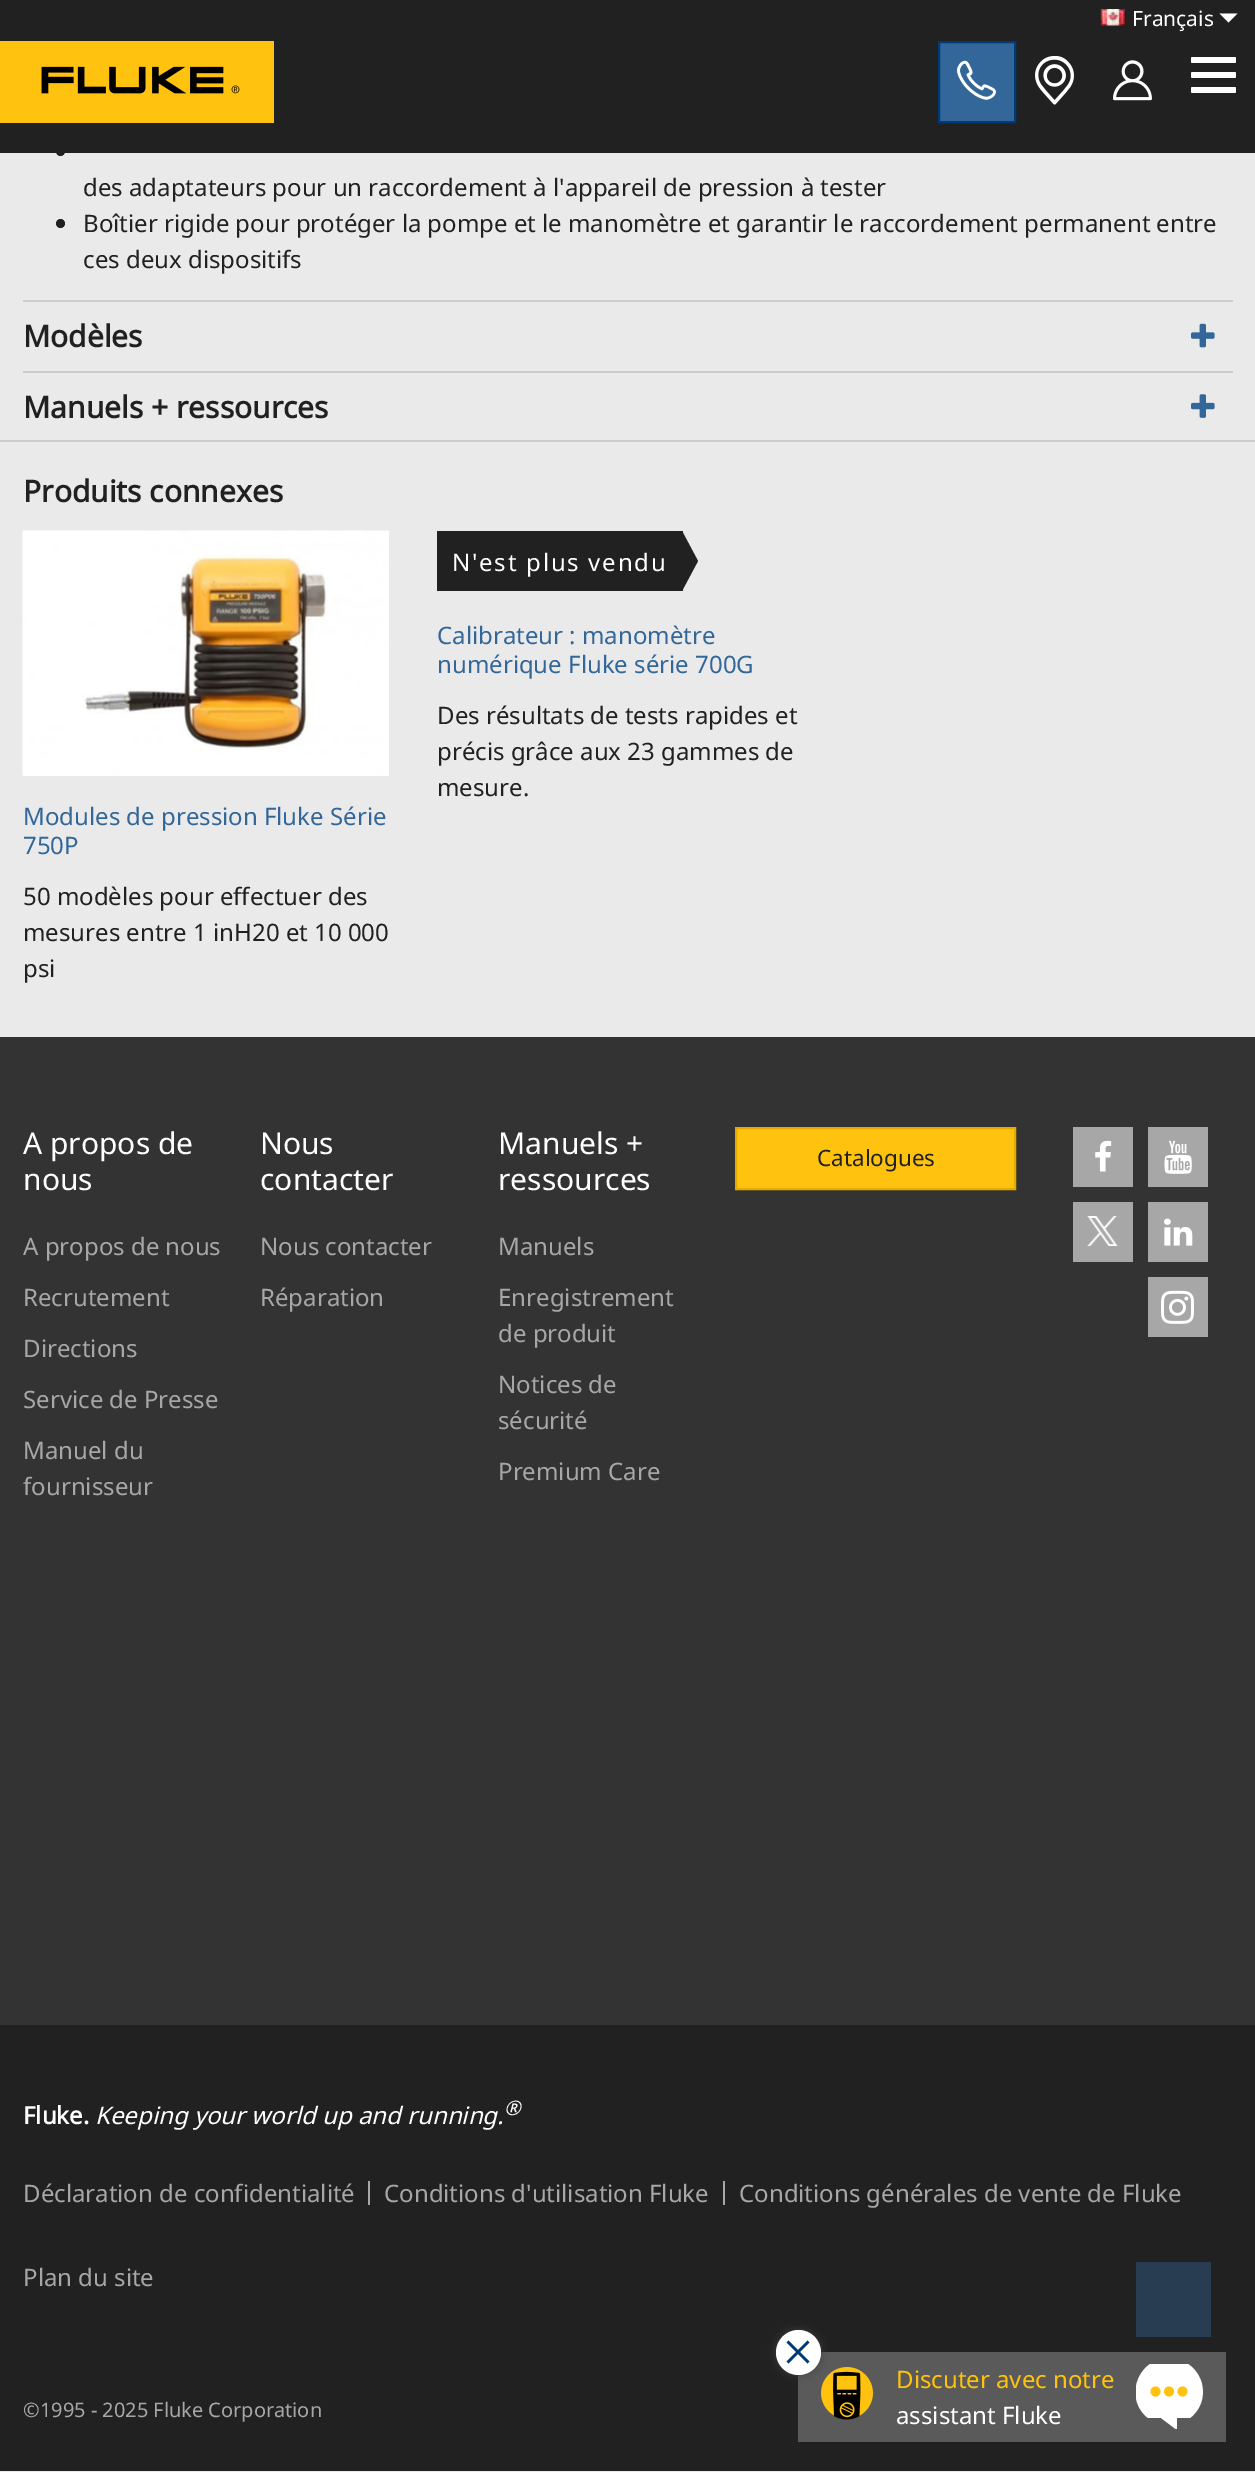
%!PS-Adobe-3.0
%%BoundingBox: 0 0 1255 2472
%%LanguageLevel: 3
%%Pages: 1
%%EndComments
%%BeginProlog
/m { moveto } bind def
/l { lineto } bind def
/c { curveto } bind def
/h { closepath } bind def
/f { fill } bind def
/S { stroke } bind def
/q { gsave } bind def
/Q { grestore } bind def
/w { setlinewidth } bind def
/fn { [ exch dup neg 0 0 3 -1 roll 0 0 ] selectfont } def
/tx { moveto show } def
/bx { rectfill } def
/al { dup .setfillconstantalpha .setstrokeconstantalpha } def
/ci { newpath 0 360 arc closepath } def
/rr { 5 dict begin { /r /h /w /y /x } { exch def } forall
  x r add y moveto x w add y 2 copy h add r arct x w add y h add x 1 index r arct
  x y h add x y r arct x y 2 copy exch w add exch r arct closepath end } def
/sh { 12 dict begin { /a /b /q /h /w /y /x } { exch def } forall gsave /was 0 def
  9 -2 -9 { dup b mul 4 div /e exch def 1 sub .425 mul 2.718 exch exp 1 add a .99 .min exch div /now exch def
    1 1 now sub 1 was sub div sub al /was now def
    w h .min e 2 mul add 0 gt { x e sub y e sub w e 2 mul add h e 2 mul add
      q e add b .6 mul add w h .min 2 div e add .min 0 .max rr fill } if } for grestore end } def
/im { 5 dict begin { /h /w /y /x /name } { exch def } forall
  gsave x y translate w h scale
  w h 8 [w 0 0 h 0 0] name (r) file false 3 colorimage grestore end } def
%%EndProlog
%%BeginSetup
<< /PageSize [1255 2472] /PageUsesTransparency true >> setpagedevice
%%EndSetup
%%Page: 1 1
0 .pushpdf14devicefilter
0 2472 translate 1 -1 scale
4 setmiterlimit
0.918 setgray
0 0 1255 2472 bx
0.129 setgray
60.5 151.5 4.5 ci f
0 0 1255 153 bx
(image0.raw) 1100 9 25 17 im
/NotoSans-Regular 21 fn
1 setgray
(Français) 1132 26 tx
1219.5 13.5 m 1237.5 13.5 l 1228.5 22.5 l h f
(image1.raw) 0 41 274 82 im
0.2 0.4 0.6 setrgbcolor
939 42 m 1015 42 l 1015 122 l 939 122 l h q f Q
0 0.231 0.471 setrgbcolor
2 w
S
(image2.raw) 957 60 39 40 im
(image3.raw) 1035 56 39 49 im
(image4.raw) 1113 60 39 41 im
1 setgray
1191 57 45 6 1.5 rr f
1191 72 45 6 1.5 rr f
1191 87 45 6 1.5 rr f
/NotoSans-Regular 24 fn
0.129 setgray
(des adaptateurs pour un raccordement à l'appareil de pression à tester) 83 196 tx
60.5 223.5 4.5 ci f
(Boîtier rigide pour protéger la pompe et le manomètre et garantir le raccordement permanent entre) 83 232 tx
(ces deux dispositifs) 83 268 tx
0.8 setgray
23 300 1210 2 bx
/NotoSans-Bold 30 fn
0.129 setgray
(Modèles) 23 347 tx
(image5.raw) 1191 323 24 25 im
0.8 setgray
23 371 1210 2 bx
0.129 setgray
(Manuels + ressources) 23 418 tx
(image6.raw) 1191 394 24 24 im
0.8 setgray
0 440 1255 2 bx
0.129 setgray
(Produits connexes) 23 502 tx
437 531 246 60 bx
/NotoSans-Regular 24 fn
1 setgray
452 571 m 1.75 0 (N'est plus vendu) ashow
0.129 setgray
682 591 m 682 531 l 698 561 l h f
0.2 0.4 0.6 setrgbcolor
(Calibrateur : manomètre) 437 644 tx
(numérique Fluke série 700G) 437 673 tx
0.129 setgray
(Des résultats de tests rapides et) 437 724 tx
(précis grâce aux 23 gammes de) 437 760 tx
(mesure.) 437 796 tx
1 setgray
23 531 366 245 bx
(image7.raw) 22 530 367 245 im
0.2 0.4 0.6 setrgbcolor
(Modules de pression Fluke Série) 23 825 tx
(750P) 23 854 tx
0.129 setgray
(50 modèles pour effectuer des) 23 905 tx
(mesures entre 1 inH20 et 10 000) 23 941 tx
(psi) 23 977 tx
0 2025 1255 446 bx
0.353 setgray
798 2352 428 90 bx
(image8.raw) 821 2367 52 53 im
0.247 setgray
776 2330 45 45 22.5 4 0.85 sh
1 setgray
798.5 2352.5 22.5 ci f
0 0.231 0.471 setrgbcolor
807.5 2340.5 m 809.5 2342.5 l 788.5 2363.5 l 786.5 2361.5 l h f
786.5 2342.5 m 788.5 2340.5 l 809.5 2361.5 l 807.5 2363.5 l h f
1 0.761 0.055 setrgbcolor
(Discuter avec notre) 896 2388 tx
1 setgray
(assistant Fluke) 896 2424 tx
q
1136 2364 67 65 rectclip
1161 2418 m 1177 2418 l 1177 2430 l h 1148 2418 m 1130 2404 1132 2377 1150 2364 c 1188 2364 l 1207 2377 1208 2404 1190 2418 c h f
Q
1 0.761 0.055 setrgbcolor
1155.5 2391.5 5 ci f
1169 2391.5 5 ci f
1182.5 2391.5 5 ci f
0.2 setgray
0 1037 1255 988 bx
/NotoSans-Regular 30 fn
1 setgray
(A propos de) 23 1154 tx
(nous) 23 1190 tx
/NotoSans-Regular 24 fn
0.655 setgray
(A propos de nous) 23 1255 tx
(Recrutement) 23 1306 tx
(Directions) 23 1357 tx
(Service de Presse) 23 1408 tx
(Manuel du) 23 1459 tx
(fournisseur) 23 1495 tx
/NotoSans-Regular 30 fn
1 setgray
(Nous) 260 1154 tx
(contacter) 260 1190 tx
/NotoSans-Regular 24 fn
0.655 setgray
(Nous contacter) 260 1255 tx
(Réparation) 260 1306 tx
/NotoSans-Regular 30 fn
1 setgray
(Manuels +) 498 1154 tx
(ressources) 498 1190 tx
/NotoSans-Regular 24 fn
0.655 setgray
(Manuels) 498 1255 tx
(Enregistrement) 498 1306 tx
(de produit) 498 1342 tx
(Notices de) 498 1393 tx
(sécurité) 498 1429 tx
(Premium Care) 498 1480 tx
1 0.761 0.055 setrgbcolor
736 1128 m 1015 1128 l 1015 1189 l 736 1189 l h q f Q
0.894 0.667 0 setrgbcolor
S
/NotoSans-Regular 22.5 fn
0.129 setgray
(Catalogues) 817 1166 tx
0.655 setgray
1073 1127 60 60 bx
(image9.raw) 1095 1140 17 32 im
1148 1127 60 60 bx
(image10.raw) 1164 1140 28 34 im
1073 1202 60 60 bx
(image11.raw) 1087 1216 31 30 im
1148 1202 60 60 bx
(image12.raw) 1164 1218 29 28 im
1148 1277 60 60 bx
(image13.raw) 1161 1290 33 34 im
/NotoSans-Bold 24 fn
1 setgray
(Fluke.) 23 2124 tx
/NotoSans-Italic 24 fn
(Keeping your world up and running.) 95 2124 tx
/NotoSans-Italic 20 fn
(®) 504 2115 tx
/NotoSans-Regular 24 fn
0.655 setgray
(Déclaration de confidentialité) 23 2202 tx
368 2181 2 24 bx
(Conditions d'utilisation Fluke) 384 2202 tx
723 2181 2 24 bx
(Conditions générales de vente de Fluke) 739 2202 tx
(Plan du site) 23 2286 tx
/NotoSans-Regular 20 fn
(©1995 - 2025 Fluke Corporation) 23 2417 tx
0.157 0.239 0.318 setrgbcolor
1136 2262 75 75 bx
.poppdf14devicefilter showpage
%%EOF
